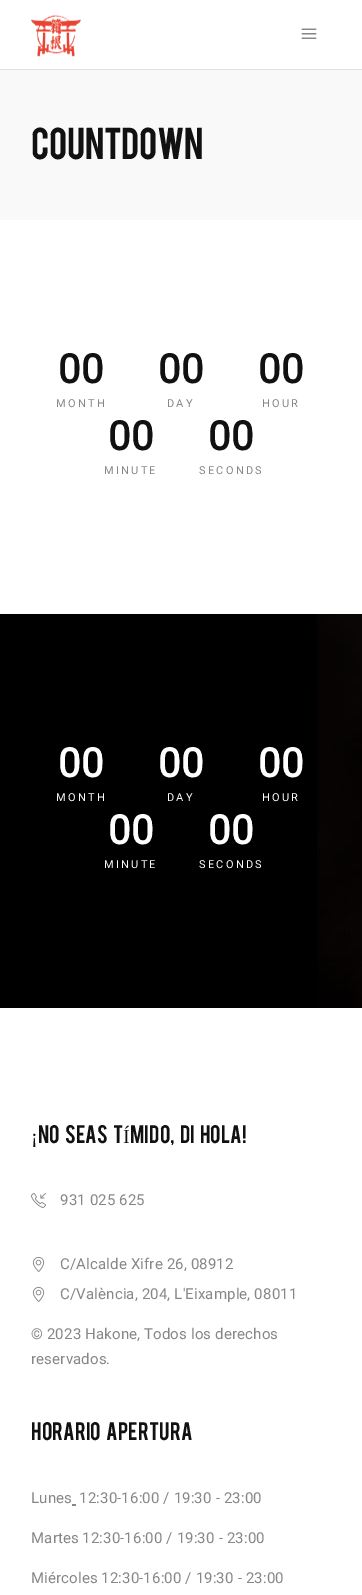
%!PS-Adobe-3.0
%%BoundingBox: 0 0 362 1595
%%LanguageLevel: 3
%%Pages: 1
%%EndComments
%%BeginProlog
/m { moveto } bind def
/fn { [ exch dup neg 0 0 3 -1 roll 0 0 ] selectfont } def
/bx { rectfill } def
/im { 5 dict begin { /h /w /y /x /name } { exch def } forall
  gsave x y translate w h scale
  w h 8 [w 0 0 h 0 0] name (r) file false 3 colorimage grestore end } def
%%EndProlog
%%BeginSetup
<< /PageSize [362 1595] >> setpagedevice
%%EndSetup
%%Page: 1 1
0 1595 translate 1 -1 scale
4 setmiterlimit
1 setgray
0 0 362 1595 bx
0.882 setgray
0 69 362 1 bx
(image0.raw) 31 14 50 43 im
(image1.raw) 301 28 16 11 im
0.976 setgray
0 70 362 150 bx
/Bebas-Regular 35 fn
0.067 setgray
31 159 m -0.25 0 (COUNTDOWN) ashow
/Roboto-Bold 40 fn
58 383 m 0.15 0 (00) ashow
/Roboto-Regular 11 fn
0.529 setgray
56 407 m 2.25 0 (MONTH) ashow
/Roboto-Bold 40 fn
0.067 setgray
158 383 m 0.15 0 (00) ashow
/Roboto-Regular 11 fn
0.529 setgray
167 407 m 2.25 0 (DAY) ashow
/Roboto-Bold 40 fn
0.067 setgray
258 383 m 0.15 0 (00) ashow
/Roboto-Regular 11 fn
0.529 setgray
262 407 m 2.25 0 (HOUR) ashow
/Roboto-Bold 40 fn
0.067 setgray
108 450 m 0.15 0 (00) ashow
/Roboto-Regular 11 fn
0.529 setgray
104 474 m 2.25 0 (MINUTE) ashow
/Roboto-Bold 40 fn
0.067 setgray
208 450 m 0.15 0 (00) ashow
/Roboto-Regular 11 fn
0.529 setgray
199 474 m 2.25 0 (SECONDS) ashow
(image2.raw) 0 614 362 394 im
/Roboto-Bold 40 fn
1 setgray
58 777 m 0.15 0 (00) ashow
/Roboto-Regular 11 fn
56 801 m 2.25 0 (MONTH) ashow
/Roboto-Bold 40 fn
158 777 m 0.15 0 (00) ashow
/Roboto-Regular 11 fn
167 801 m 2.25 0 (DAY) ashow
/Roboto-Bold 40 fn
258 777 m 0.15 0 (00) ashow
/Roboto-Regular 11 fn
262 801 m 2.25 0 (HOUR) ashow
/Roboto-Bold 40 fn
108 844 m 0.15 0 (00) ashow
/Roboto-Regular 11 fn
104 868 m 2.25 0 (MINUTE) ashow
/Roboto-Bold 40 fn
208 844 m 0.15 0 (00) ashow
/Roboto-Regular 11 fn
199 868 m 2.25 0 (SECONDS) ashow
/LiberationSerif-Regular 20 fn
0.067 setgray
31 1143 m 0.15 0 (¡) ashow
/Bebas-Regular 20 fn
38 1143 m 3 0 32 0.15 0 (NO SEAS T) awidthshow
/LiberationSerif-Regular 20 fn
123 1143 m 0.15 0 (Í) ashow
/Bebas-Regular 20 fn
130 1143 m 3 0 32 0.15 0 (MIDO, DI HOLA!) awidthshow
(image3.raw) 31 1193 15 15 im
/Roboto-Regular 15 fn
0.529 setgray
60 1205 m 0.15 0 (931 025 625) ashow
(image4.raw) 32 1256 13 16 im
60 1269 m 0.15 0 (C/Alcalde Xifre 26, 08912) ashow
(image4.raw) 32 1286 13 16 im
60 1299 m 0.15 0 (C/València, 204, L'Eixample, 08011) ashow
31 1339 m 0.15 0 (© 2023 Hakone, Todos los derechos) ashow
31 1364 m 0.15 0 (reservados.) ashow
/Bebas-Regular 20 fn
0.067 setgray
31 1440 m 3 0 32 0.15 0 (HORARIO APERTURA) awidthshow
/Roboto-Regular 15 fn
0.529 setgray
31 1503 m 0.15 0 (Lunes) ashow
79 1503 m 0.15 0 (12:30-16:00 / 19:30 - 23:00) ashow
72 1504 4 2 bx
31 1543 m 0.15 0 (Martes) ashow
82 1543 m 0.15 0 (12:30-16:00 / 19:30 - 23:00) ashow
31 1583 m 0.15 0 (Miércoles) ashow
101 1583 m 0.15 0 (12:30-16:00 / 19:30 - 23:00) ashow
showpage
%%EOF
